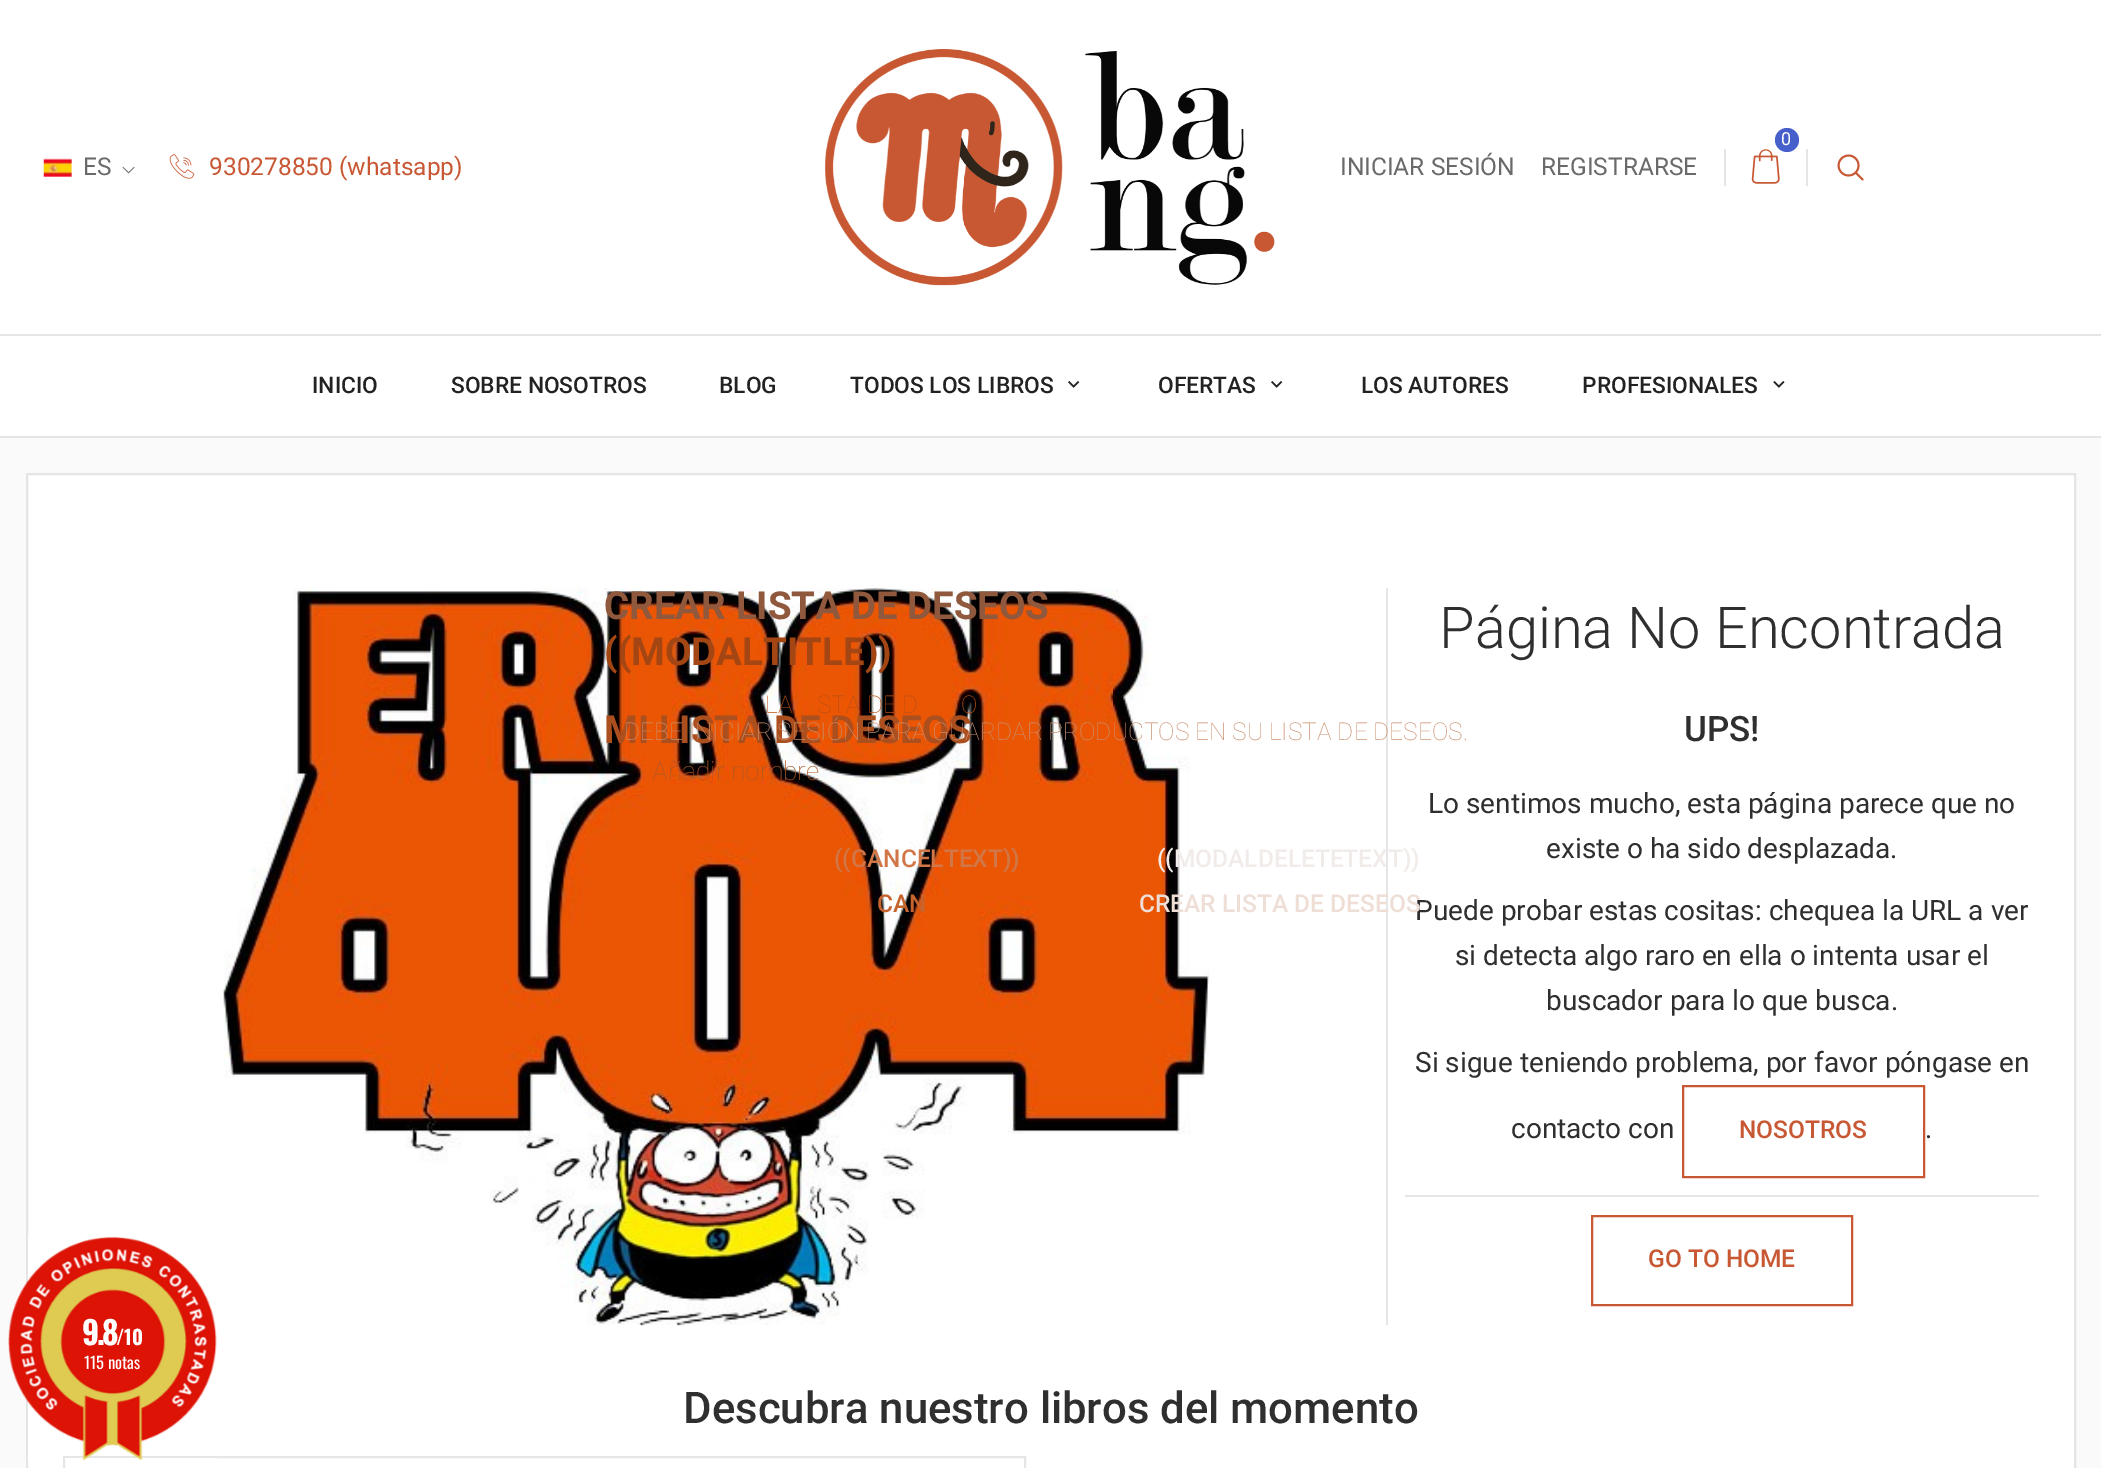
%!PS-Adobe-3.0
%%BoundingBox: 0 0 2101 1468
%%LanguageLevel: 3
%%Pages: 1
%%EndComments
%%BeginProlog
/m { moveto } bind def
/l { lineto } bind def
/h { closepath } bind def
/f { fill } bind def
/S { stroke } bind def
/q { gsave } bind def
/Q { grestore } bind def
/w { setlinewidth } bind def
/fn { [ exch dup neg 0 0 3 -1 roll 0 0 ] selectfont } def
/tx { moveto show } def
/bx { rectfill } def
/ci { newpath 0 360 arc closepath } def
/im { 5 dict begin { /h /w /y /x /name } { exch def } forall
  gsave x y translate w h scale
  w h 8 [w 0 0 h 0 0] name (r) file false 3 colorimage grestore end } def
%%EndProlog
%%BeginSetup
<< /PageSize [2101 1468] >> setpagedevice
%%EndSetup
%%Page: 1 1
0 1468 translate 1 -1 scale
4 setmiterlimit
1 setgray
0 0 2101 1468 bx
(image0.raw) 43 158 29 19 im
/Roboto-Regular 24.5 fn
0.416 setgray
(ES) 83 175 tx
(image1.raw) 122 166 13 8 im
(image2.raw) 169 154 26 25 im
0.784 0.345 0.2 setrgbcolor
(930278850 \(whatsapp\)) 209 175 tx
(image3.raw) 825 49 450 237 im
0.898 setgray
1806 149 2 37 bx
1724 149 2 37 bx
(image4.raw) 1751 149 29 35 im
0.275 0.373 0.796 setrgbcolor
1787 140 12 ci f
/Roboto-Regular 18 fn
1 setgray
(0) 1781 145 tx
/Roboto-Regular 24.5 fn
0.416 setgray
(INICIAR SESIÓN) 1340 175 tx
(REGISTRARSE) 1541 175 tx
(image5.raw) 1837 154 27 27 im
0.898 setgray
0 334 2101 2 bx
0 436 2101 2 bx
/Roboto-Medium 22.75 fn
0.133 setgray
(INICIO) 312 393 tx
(SOBRE NOSOTROS) 451 393 tx
(BLOG) 719 393 tx
(TODOS LOS LIBROS) 850 393 tx
(image6.raw) 1068 381 12 7 im
(OFERTAS) 1158 393 tx
(image6.raw) 1271 381 12 7 im
(LOS AUTORES) 1361 393 tx
(PROFESIONALES) 1582 393 tx
(image7.raw) 1773 381 12 7 im
0.98 setgray
0 438 2101 1030 bx
1 setgray
27 474 m 2075 474 l 2075 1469 l 27 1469 l h q f Q
0.898 setgray
2 w
S
(image8.raw) 223 588 986 738 im
/Roboto-Bold 38.5 fn
0.565 0.345 0.235 setrgbcolor
(CREAR LISTA DE DESEOS) 604 619 tx
/Roboto-Thin 24.5 fn
0.741 0.31 0.078 setrgbcolor
(LA) 765 713 tx
(STA DE D) 817 713 tx
(O) 961 713 tx
/Roboto-Thin 26.25 fn
0.686 0.341 0.161 setrgbcolor
(Añadir nombre) 652 780 tx
/Roboto-Medium 24.5 fn
0.78 0.388 0.173 setrgbcolor
(CAN) 877 912 tx
0.902 setgray
1386 588 2 737 bx
/Roboto-Regular 28 fn
0.184 setgray
(Puede probar estas cositas: chequea la URL a ver) 1415 920 tx
/Roboto-Medium 24.5 fn
0.933 0.871 0.839 setrgbcolor
(CREAR LISTA DE DESEOS) 1139 912 tx
/Roboto-Bold 38.5 fn
0.639 0.275 0.078 setrgbcolor
(\(\(MODALTITLE\)\)) 604 665 tx
/Roboto-Medium 24.5 fn
0.82 0.467 0.278 setrgbcolor
(\(\(CANCELTEXT\)\)) 834 867 tx
0.945 0.925 0.914 setrgbcolor
(\(\(MODALDELETETEXT\)\)) 1157 867 tx
/Roboto-Bold 38.5 fn
0.671 0.31 0.122 setrgbcolor
(MI LISTA DE DESEOS) 604 743 tx
/Roboto-Thin 24.5 fn
0.796 0.561 0.435 setrgbcolor
(DEBE INICIAR SESIÓN PARA GUARDAR PRODUCTOS EN SU LISTA DE DESEOS.) 624 740 tx
/Roboto-Light 57.75 fn
0.184 setgray
(Página No Encontrada) 1439 648 tx
/Roboto-Medium 35 fn
(UPS!) 1684 741 tx
/Roboto-Regular 28 fn
(Lo sentimos mucho, esta página parece que no) 1428 813 tx
(existe o ha sido desplazada.) 1546 858 tx
(si detecta algo raro en ella o intenta usar el) 1455 965 tx
(buscador para lo que busca.) 1546 1010 tx
(Si sigue teniendo problema, por favor póngase en) 1415 1072 tx
(contacto con) 1511 1138 tx
0.784 0.345 0.2 setrgbcolor
1683 1086 241 91 rectstroke
/Roboto-Medium 24.5 fn
(NOSOTROS) 1739 1138 tx
/Roboto-Regular 28 fn
0.184 setgray
(.) 1925 1138 tx
0.902 setgray
1405 1195 634 2 bx
0.784 0.345 0.2 setrgbcolor
1592 1216 260 89 rectstroke
/Roboto-Medium 24.5 fn
(GO TO HOME) 1648 1267 tx
/Roboto-Medium 43.75 fn
0.184 setgray
(Descubra nuestro libros del momento) 683 1423 tx
0.902 setgray
64 1457 961 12 rectstroke
(image9.raw) 8 1237 209 224 im
/Oswald-Bold 32 fn
1 setgray
82 1345 m -2.5 0 (9.8) ashow
/Oswald-Bold 20 fn
(/10) 116 1345 tx
/Oswald-Regular 16.5 fn
(115 notas) 84 1369 tx
showpage
%%EOF
